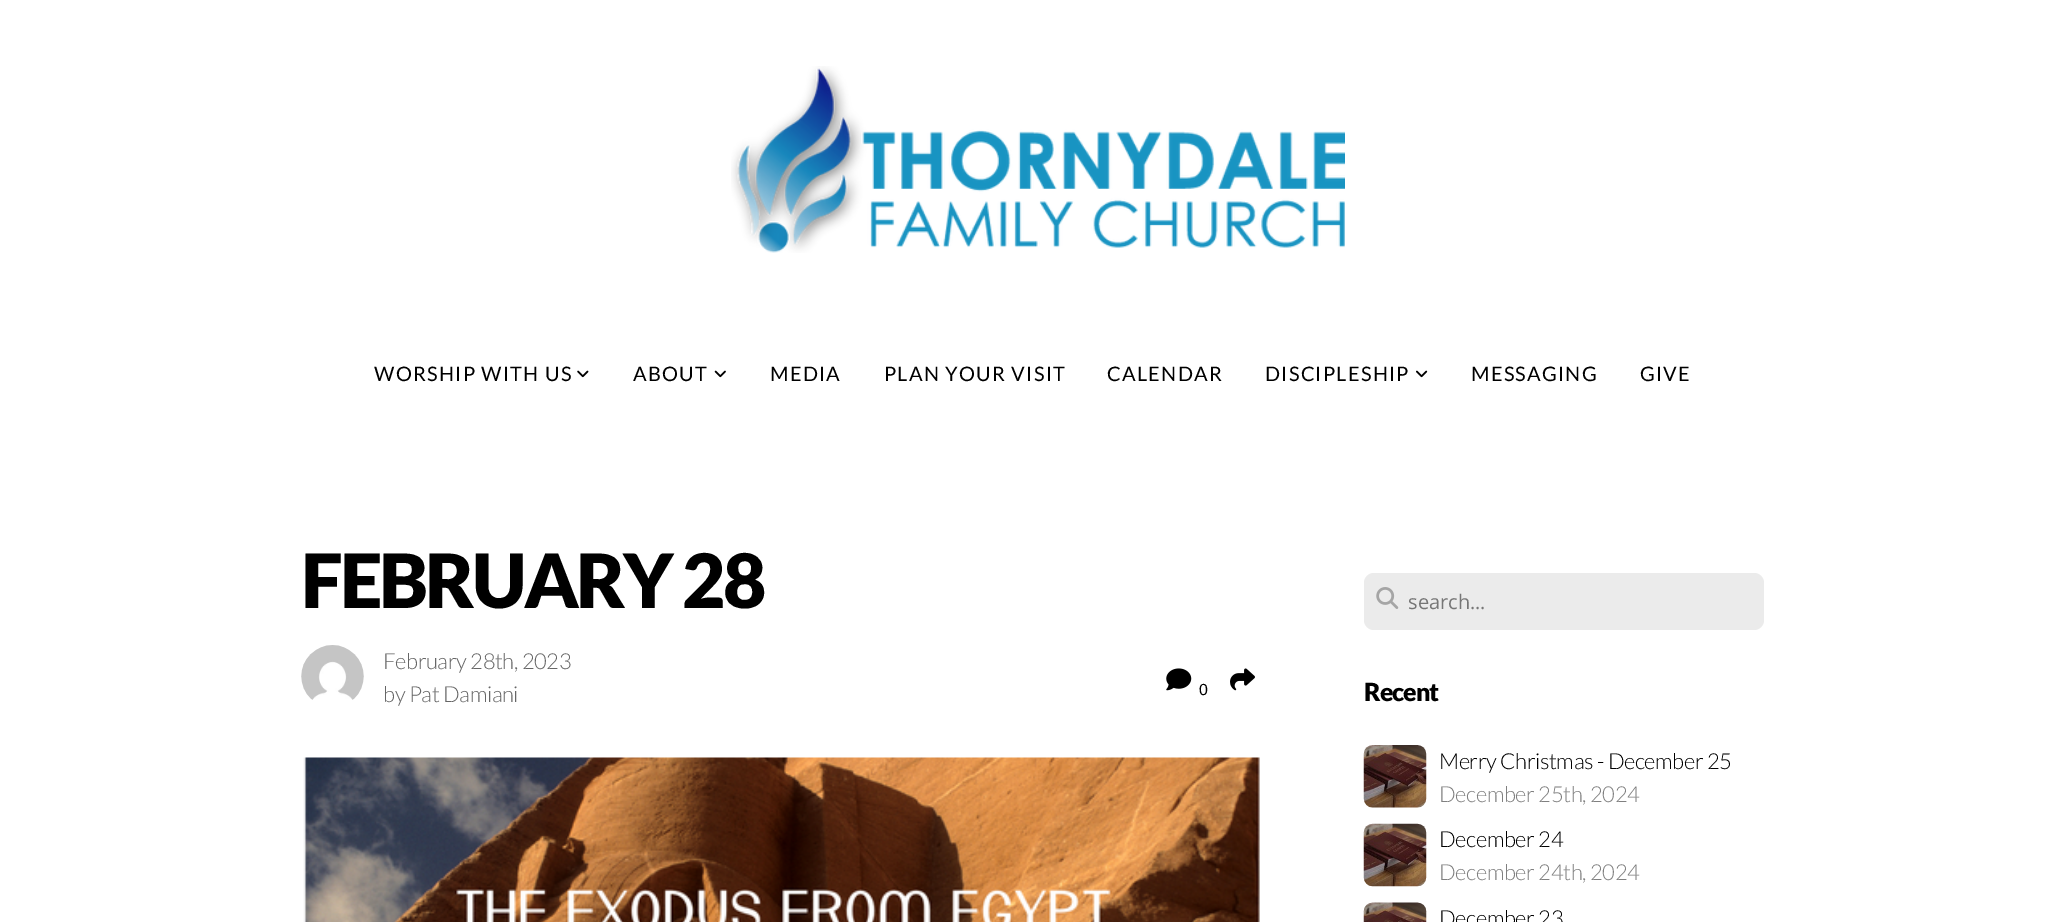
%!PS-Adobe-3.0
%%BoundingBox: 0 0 2064 922
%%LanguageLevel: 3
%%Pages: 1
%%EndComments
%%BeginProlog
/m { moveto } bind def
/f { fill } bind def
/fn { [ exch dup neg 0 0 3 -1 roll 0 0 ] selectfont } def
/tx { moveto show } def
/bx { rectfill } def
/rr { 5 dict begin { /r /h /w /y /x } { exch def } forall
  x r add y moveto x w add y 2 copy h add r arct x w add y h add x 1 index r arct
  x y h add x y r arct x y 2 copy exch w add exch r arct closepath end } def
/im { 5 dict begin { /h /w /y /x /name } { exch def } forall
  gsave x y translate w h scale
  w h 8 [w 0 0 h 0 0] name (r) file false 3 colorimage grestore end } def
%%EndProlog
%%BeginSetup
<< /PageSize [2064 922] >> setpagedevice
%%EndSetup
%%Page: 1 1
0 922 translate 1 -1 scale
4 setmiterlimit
1 setgray
0 0 2064 922 bx
(image0.raw) 731 66 614 187 im
/Lato-Regular 20 fn
0 setgray
374 381 m 1.25 0 (WORSHIP WITH US) ashow
(image1.raw) 577 370 12 8 im
633 381 m 1.25 0 (ABOUT) ashow
(image2.raw) 714 370 12 8 im
770 381 m 1.25 0 (MEDIA) ashow
884 381 m 1.25 0 (PLAN YOUR VISIT) ashow
1107 381 m 1.25 0 (CALENDAR) ashow
1265 381 m 1.25 0 (DISCIPLESHIP) ashow
(image3.raw) 1416 370 12 8 im
1471 381 m 1.25 0 (MESSAGING) ashow
1640 381 m 1.25 0 (GIVE) ashow
/Lato-Black 75 fn
301 608 m -3 0 (FEBRUARY 28) ashow
(image4.raw) 301 645 63 55 im
/Lato-Light 22 fn
0.4 setgray
383 669 m -0.4 0 (February 28th, 2023) ashow
383 702 m -0.4 0 (by Pat Damiani) ashow
(image5.raw) 1166 668 26 23 im
/LiberationSans-Regular 16 fn
0 setgray
1199 695 m -0.4 0 (0) ashow
(image6.raw) 1230 668 25 23 im
(image7.raw) 303 757 957 165 im
0.922 setgray
1364 573 400 57 10 rr f
(image8.raw) 1376 587 23 22 im
/OpenSans-Regular 20 fn
0.463 setgray
(search...) 1408 609 tx
/Lato-Black 25 fn
0 setgray
1364 701 m -1 0 (Recent) ashow
(image9.raw) 1363 745 64 63 im
/Lato-Light 22 fn
1439 769 m -0.4 0 (Merry Christmas - December 25) ashow
0.502 setgray
1439 802 m -0.4 0 (December 25th, 2024) ashow
(image10.raw) 1363 823 64 64 im
0 setgray
1439 847 m -0.4 0 (December 24) ashow
0.502 setgray
1439 880 m -0.4 0 (December 24th, 2024) ashow
(image11.raw) 1363 902 64 20 im
0 setgray
1439 926 m -0.4 0 (December 23) ashow
showpage
%%EOF
